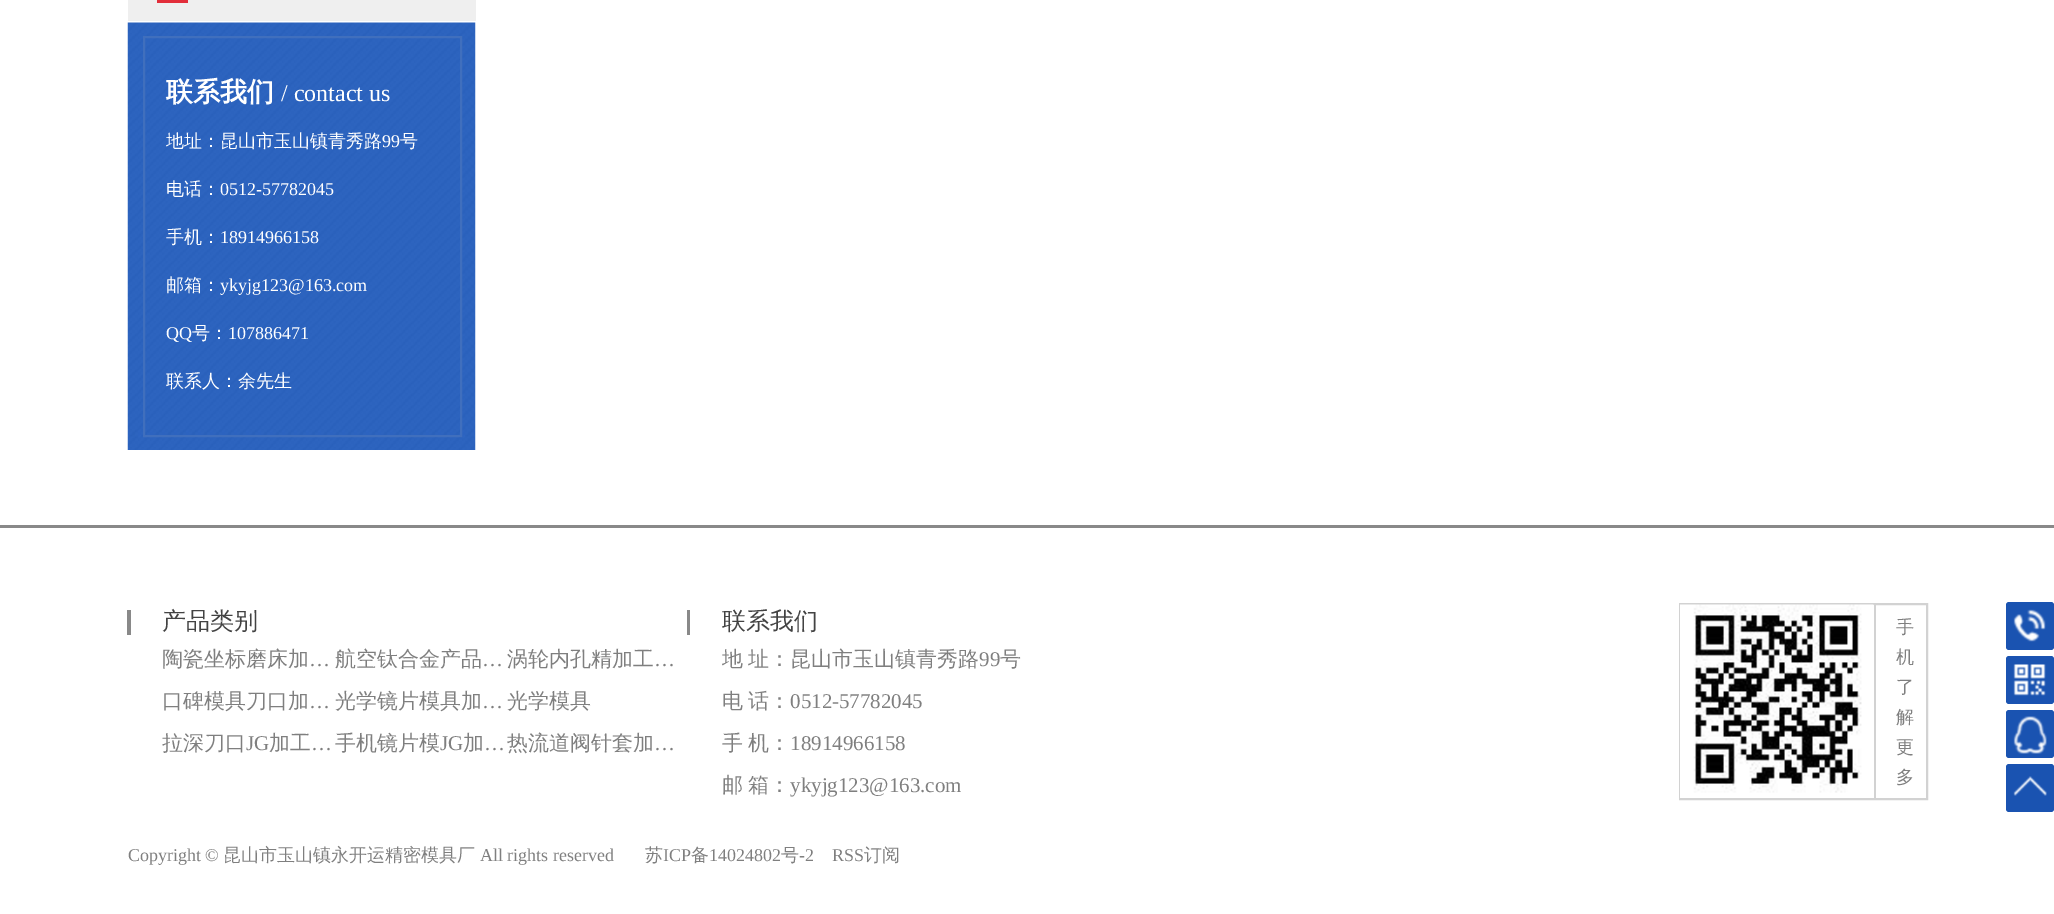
%!PS-Adobe-3.0
%%BoundingBox: 0 0 2054 914
%%LanguageLevel: 3
%%Pages: 1
%%EndComments
%%BeginProlog
/f { fill } bind def
/w { setlinewidth } bind def
/fn { [ exch dup neg 0 0 3 -1 roll 0 0 ] selectfont } def
/tx { moveto show } def
/bx { rectfill } def
/rr { 5 dict begin { /r /h /w /y /x } { exch def } forall
  x r add y moveto x w add y 2 copy h add r arct x w add y h add x 1 index r arct
  x y h add x y r arct x y 2 copy exch w add exch r arct closepath end } def
/im { 5 dict begin { /h /w /y /x /name } { exch def } forall
  gsave x y translate w h scale
  w h 8 [w 0 0 h 0 0] name (r) file false 3 colorimage grestore end } def
%%EndProlog
%%BeginSetup
<< /PageSize [2054 914] >> setpagedevice
%%EndSetup
%%Page: 1 1
0 914 translate 1 -1 scale
4 setmiterlimit
1 setgray
0 0 2054 914 bx
0.537 setgray
0 525 2054 3 bx
0.937 setgray
128 0 348 21 bx
0.886 0.18 0.227 setrgbcolor
157 0 31 3 bx
(image0.raw) 127 22 349 428 im
0.251 0.435 0.741 setrgbcolor
2 w
144 37 317 399 rectstroke
/WenQuanYiZenHei-Bold 27 fn
1 setgray
(联系我们) 166 101 tx
/LiberationSerif-Regular 24 fn
(/ contact us) 281 101 tx
/WenQuanYiZenHei-Medium 18 fn
(地址：昆山市玉山镇青秀路) 166 147 tx
/LiberationSerif-Regular 18 fn
(99) 382 147 tx
/WenQuanYiZenHei-Medium 18 fn
(号) 400 147 tx
(电话：) 166 195 tx
/LiberationSerif-Regular 18 fn
(0512-57782045) 220 195 tx
/WenQuanYiZenHei-Medium 18 fn
(手机：) 166 243 tx
/LiberationSerif-Regular 18 fn
(18914966158) 220 243 tx
/WenQuanYiZenHei-Medium 18 fn
(邮箱：) 166 291 tx
/LiberationSerif-Regular 18 fn
(ykyjg123@163.com) 220 291 tx
(QQ) 166 339 tx
/WenQuanYiZenHei-Medium 18 fn
(号：) 192 339 tx
/LiberationSerif-Regular 18 fn
(107886471) 228 339 tx
/WenQuanYiZenHei-Medium 18 fn
(联系人：余先生) 166 387 tx
0.537 setgray
127 610 4 25 bx
/WenQuanYiZenHei-Medium 24 fn
0.263 setgray
(产品类别) 162 629 tx
/WenQuanYiZenHei-Medium 21 fn
0.498 setgray
(陶瓷坐标磨床加) 162 666 tx
/LiberationSerif-Regular 21 fn
(…) 309 666 tx
/WenQuanYiZenHei-Medium 21 fn
(航空钛合金产品) 335 666 tx
/LiberationSerif-Regular 21 fn
(…) 482 666 tx
/WenQuanYiZenHei-Medium 21 fn
(涡轮内孔精加工) 507 666 tx
/LiberationSerif-Regular 21 fn
(…) 654 666 tx
/WenQuanYiZenHei-Medium 21 fn
(口碑模具刀口加) 162 708 tx
/LiberationSerif-Regular 21 fn
(…) 309 708 tx
/WenQuanYiZenHei-Medium 21 fn
(光学镜片模具加) 335 708 tx
/LiberationSerif-Regular 21 fn
(…) 482 708 tx
/WenQuanYiZenHei-Medium 21 fn
(光学模具) 507 708 tx
(拉深刀口) 162 750 tx
/LiberationSerif-Regular 21 fn
(JG) 246 750 tx
/WenQuanYiZenHei-Medium 21 fn
(加工) 269 750 tx
/LiberationSerif-Regular 21 fn
(…) 311 750 tx
/WenQuanYiZenHei-Medium 21 fn
(手机镜片模) 335 750 tx
/LiberationSerif-Regular 21 fn
(JG) 440 750 tx
/WenQuanYiZenHei-Medium 21 fn
(加) 463 750 tx
/LiberationSerif-Regular 21 fn
(…) 484 750 tx
/WenQuanYiZenHei-Medium 21 fn
(热流道阀针套加) 507 750 tx
/LiberationSerif-Regular 21 fn
(…) 654 750 tx
0.537 setgray
687 610 3 25 bx
/WenQuanYiZenHei-Medium 24 fn
0.263 setgray
(联系我们) 722 629 tx
/WenQuanYiZenHei-Medium 21 fn
0.498 setgray
(地) 722 666 tx
(址：昆山市玉山镇青秀路) 748 666 tx
/LiberationSerif-Regular 21 fn
(99) 979 666 tx
/WenQuanYiZenHei-Medium 21 fn
(号) 1000 666 tx
(电) 722 708 tx
(话：) 748 708 tx
/LiberationSerif-Regular 21 fn
(0512-57782045) 790 708 tx
/WenQuanYiZenHei-Medium 21 fn
(手) 722 750 tx
(机：) 748 750 tx
/LiberationSerif-Regular 21 fn
(18914966158) 790 750 tx
/WenQuanYiZenHei-Medium 21 fn
(邮) 722 792 tx
(箱：) 748 792 tx
/LiberationSerif-Regular 21 fn
(ykyjg123@163.com) 790 792 tx
0.824 setgray
1680 604 247 195 rectstroke
1874 605 2 193 bx
(image1.raw) 1680 604 194 194 im
/WenQuanYiZenHei-Medium 18 fn
0.498 setgray
(手) 1896 633 tx
(机) 1896 663 tx
(了) 1896 693 tx
(解) 1896 723 tx
(更) 1896 753 tx
(多) 1896 783 tx
/LiberationSerif-Regular 18 fn
(Copyright ©) 128 861 tx
/WenQuanYiZenHei-Medium 18 fn
(昆山市玉山镇永开运精密模具厂) 223 861 tx
/LiberationSerif-Regular 18 fn
(All rights reserved) 480 861 tx
/WenQuanYiZenHei-Medium 18 fn
(苏) 645 861 tx
/LiberationSerif-Regular 18 fn
(ICP) 663 861 tx
/WenQuanYiZenHei-Medium 18 fn
(备) 691 861 tx
/LiberationSerif-Regular 18 fn
(14024802) 709 861 tx
/WenQuanYiZenHei-Medium 18 fn
(号) 781 861 tx
/LiberationSerif-Regular 18 fn
(-2) 799 861 tx
(RSS) 832 861 tx
/WenQuanYiZenHei-Medium 18 fn
(订阅) 864 861 tx
0.102 0.325 0.694 setrgbcolor
2006 602 48 48 3 rr f
(image2.raw) 2013 609 33 33 im
2006 656 48 48 3 rr f
(image3.raw) 2013 664 33 32 im
2006 710 48 48 3 rr f
(image4.raw) 2013 716 34 38 im
2006 764 48 48 3 rr f
(image5.raw) 2013 776 34 20 im
showpage
%%EOF
